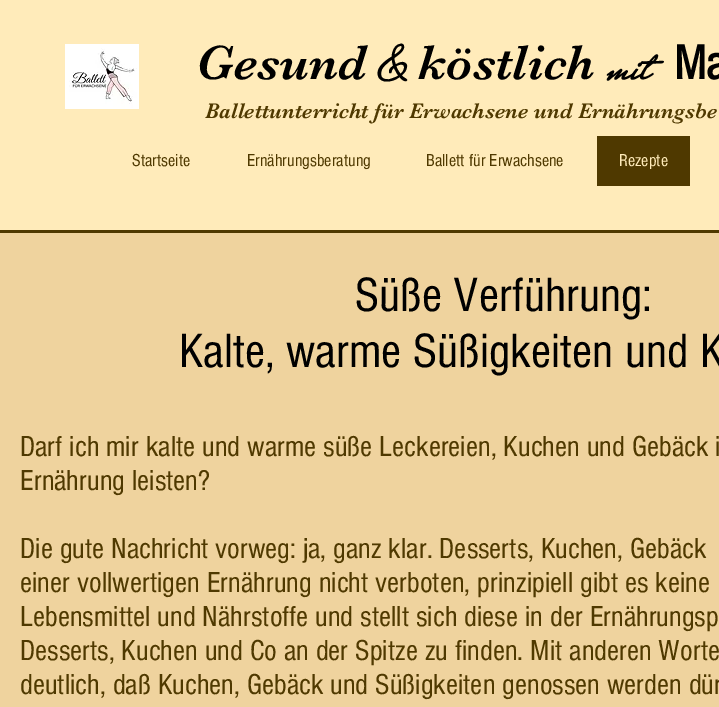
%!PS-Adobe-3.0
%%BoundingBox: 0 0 719 707
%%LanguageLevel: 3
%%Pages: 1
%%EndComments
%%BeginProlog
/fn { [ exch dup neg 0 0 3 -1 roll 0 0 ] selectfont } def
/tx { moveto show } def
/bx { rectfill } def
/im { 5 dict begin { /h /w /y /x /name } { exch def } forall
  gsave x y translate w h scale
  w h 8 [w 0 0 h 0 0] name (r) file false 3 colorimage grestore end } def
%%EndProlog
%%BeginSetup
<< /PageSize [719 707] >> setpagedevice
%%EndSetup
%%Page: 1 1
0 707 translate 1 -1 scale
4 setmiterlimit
0.937 0.827 0.62 setrgbcolor
0 0 719 707 bx
1 0.922 0.729 setrgbcolor
0 0 719 230 bx
0.31 0.224 0 setrgbcolor
0 230 719 3 bx
(image0.raw) 65 44 74 65 im
/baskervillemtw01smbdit-Regular 50 fn
0 setgray
(Gesund) 196 79 tx
/MrDeHaviland-Bold 50 fn
(&) 379 79 tx
/baskervillemtw01smbdit-Regular 50 fn
(köstlich) 418 79 tx
/MrDeHaviland-Bold 50 fn
(mit) 607 79 tx
/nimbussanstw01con-Bold 50 fn
(Ma) 674 79 tx
/baskervillemtw01smbdit-Regular 22 fn
0.31 0.224 0 setrgbcolor
(Ballettunterricht für Erwachsene und Ernährungsbe) 205 118 tx
/nimbussanstw01con-Regular 18 fn
(Startseite) 132 166 tx
(Ernährungsberatung) 247 166 tx
(Ballett für Erwachsene) 426 166 tx
597 136 93 50 bx
1 0.922 0.729 setrgbcolor
(Rezepte) 619 166 tx
/nimbussanstw01con-Regular 50 fn
0 setgray
(Süße Verführung:) 355 311 tx
(Kalte, warme Süßigkeiten und K) 179 367 tx
/nimbussanstw01con-Regular 30 fn
0.31 0.224 0 setrgbcolor
(Darf ich mir kalte und warme süße Leckereien, Kuchen und Gebäck i) 20 456 tx
(Ernährung leisten?) 20 490 tx
(Die gute Nachricht vorweg: ja, ganz klar. Desserts, Kuchen, Gebäck) 20 558 tx
(einer vollwertigen Ernährung nicht verboten, prinzipiell gibt es keine) 20 592 tx
(Lebensmittel und Nährstoffe und stellt sich diese in der Ernährungsp) 20 626 tx
(Desserts, Kuchen und Co an der Spitze zu finden. Mit anderen Worte) 20 660 tx
(deutlich, daß Kuchen, Gebäck und Süßigkeiten genossen werden dür) 20 694 tx
showpage
%%EOF
